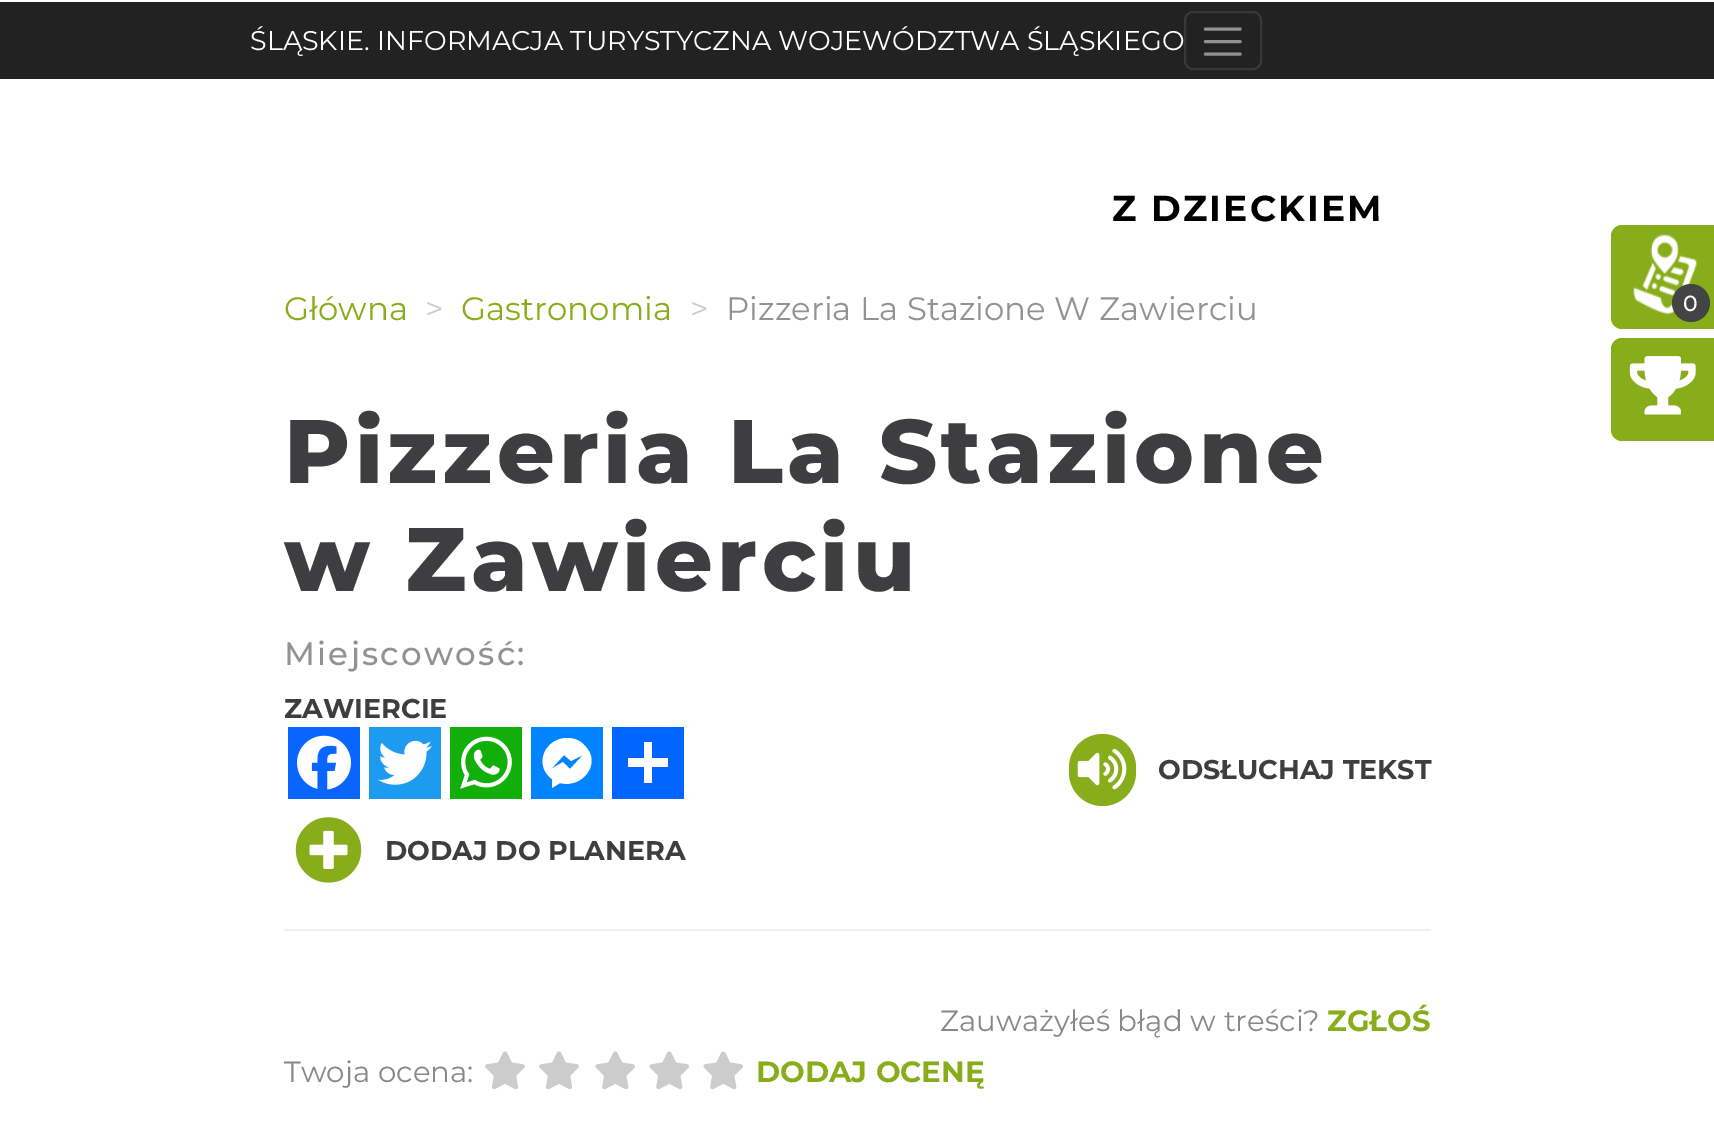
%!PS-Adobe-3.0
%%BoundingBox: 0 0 1714 1127
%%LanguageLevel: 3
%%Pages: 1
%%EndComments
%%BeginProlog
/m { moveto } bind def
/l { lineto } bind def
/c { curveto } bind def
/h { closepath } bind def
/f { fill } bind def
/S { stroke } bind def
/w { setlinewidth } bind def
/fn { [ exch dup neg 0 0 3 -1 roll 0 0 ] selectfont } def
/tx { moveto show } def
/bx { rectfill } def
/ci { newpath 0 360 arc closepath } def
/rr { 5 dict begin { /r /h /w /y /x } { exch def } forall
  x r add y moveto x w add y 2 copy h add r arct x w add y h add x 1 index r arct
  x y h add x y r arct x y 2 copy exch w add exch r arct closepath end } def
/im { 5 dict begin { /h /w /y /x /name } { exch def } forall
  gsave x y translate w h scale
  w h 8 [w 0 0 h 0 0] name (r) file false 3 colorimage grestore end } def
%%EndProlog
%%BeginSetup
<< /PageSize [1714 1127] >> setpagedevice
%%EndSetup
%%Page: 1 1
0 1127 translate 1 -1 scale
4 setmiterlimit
1 setgray
0 0 1714 1127 bx
0.133 setgray
0 2 1714 77 bx
/Montserrat-Regular 27 fn
1 setgray
(ŚLĄSKIE. INFORMACJA TURYSTYCZNA WOJEWÓDZTWA ŚLĄSKIEGO) 250 50 tx
0.22 setgray
2 w
1185 12 76 57 8 rr S
0.569 setgray
3.1 w
1 setlinecap
1205.5 29 m 1240 29 l 1205.5 41.5 m 1240 41.5 l 1205.5 54 m 1240 54 l S
/Montserrat-Bold 36 fn
0 setgray
1112 221 m 2.25 0 (Z DZIECKIEM) ashow
/Montserrat-Regular 32.4 fn
0.533 0.678 0.106 setrgbcolor
(Główna) 284 320 tx
0.8 setgray
(>) 425 320 tx
0.533 0.678 0.106 setrgbcolor
(Gastronomia) 461 320 tx
0.8 setgray
(>) 690 320 tx
0.573 setgray
(Pizzeria La Stazione W Zawierciu) 726 320 tx
0.533 0.678 0.106 setrgbcolor
1622 225 m 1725 225 l 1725 329 l 1622 329 l 1616 329 1611 324 1611 318 c 1611 236 l 1611 230 1616 225 1622 225 c h f
(image0.raw) 1633 234 64 81 im
0.267 setgray
1691 303 19 ci f
/Montserrat-Medium 22 fn
1 setgray
(0) 1683 311 tx
0.533 0.678 0.106 setrgbcolor
1622 338 m 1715 338 l 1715 441 l 1622 441 l 1616 441 1611 436 1611 430 c 1611 349 l 1611 343 1616 338 1622 338 c h f
(image1.raw) 1629 356 67 59 im
/Montserrat-ExtraBold 90 fn
0.243 0.239 0.251 setrgbcolor
284 483 m 4.5 0 (Pizzeria La Stazione) ashow
284 591 m 4.5 0 (w Zawierciu) ashow
0.937 0.937 0.941 setrgbcolor
284 929 1147 2 bx
/Montserrat-Medium 32.4 fn
0.573 setgray
284 665 m 2.25 0 (Miejscowość:) ashow
/Montserrat-Bold 27 fn
0.243 0.239 0.251 setrgbcolor
(ZAWIERCIE) 284 718 tx
0.031 0.4 1 setrgbcolor
288 727 72 72 bx
(image2.raw) 297 735 54 55 im
0.114 0.608 0.941 setrgbcolor
369 727 72 72 bx
(image3.raw) 378 740 54 45 im
0.071 0.686 0.039 setrgbcolor
450 727 72 72 bx
(image4.raw) 460 736 52 53 im
0 0.518 1 setrgbcolor
531 727 72 72 bx
1 setgray
567 738 m 545 738 533 765 552 779 c 552 788 l 560 783 l 583 789 603 762 584 745 c 580 740 573 738 567 738 c 570 769 m 563 762 l 551 769 l 564 755 l 571 761 l 583 755 l h f
0.004 0.4 1 setrgbcolor
612 727 72 72 bx
1 setgray
644 742 8 41 bx
628 758 40 9 bx
0.533 0.678 0.106 setrgbcolor
1069 734 67 72 33.5 rr f
(image5.raw) 1077 748 50 42 im
0.243 0.239 0.251 setrgbcolor
(ODSŁUCHAJ TEKST) 1158 779 tx
(image6.raw) 295 817 67 66 im
(DODAJ DO PLANERA) 385 860 tx
/Montserrat-Regular 29.25 fn
0.533 setgray
(Zauważyłeś błąd w treści?) 940 1031 tx
/Montserrat-Bold 29.25 fn
0.533 0.678 0.106 setrgbcolor
(ZGŁOŚ) 1327 1031 tx
/Montserrat-Regular 29.25 fn
0.533 setgray
(Twoja ocena:) 284 1082 tx
(image7.raw) 485 1051 40 39 im
(image7.raw) 539 1051 40 39 im
(image8.raw) 595 1051 40 39 im
(image8.raw) 649 1051 40 39 im
(image8.raw) 703 1051 40 39 im
/Montserrat-Bold 29.25 fn
0.533 0.678 0.106 setrgbcolor
(DODAJ OCENĘ) 756 1082 tx
showpage
%%EOF
